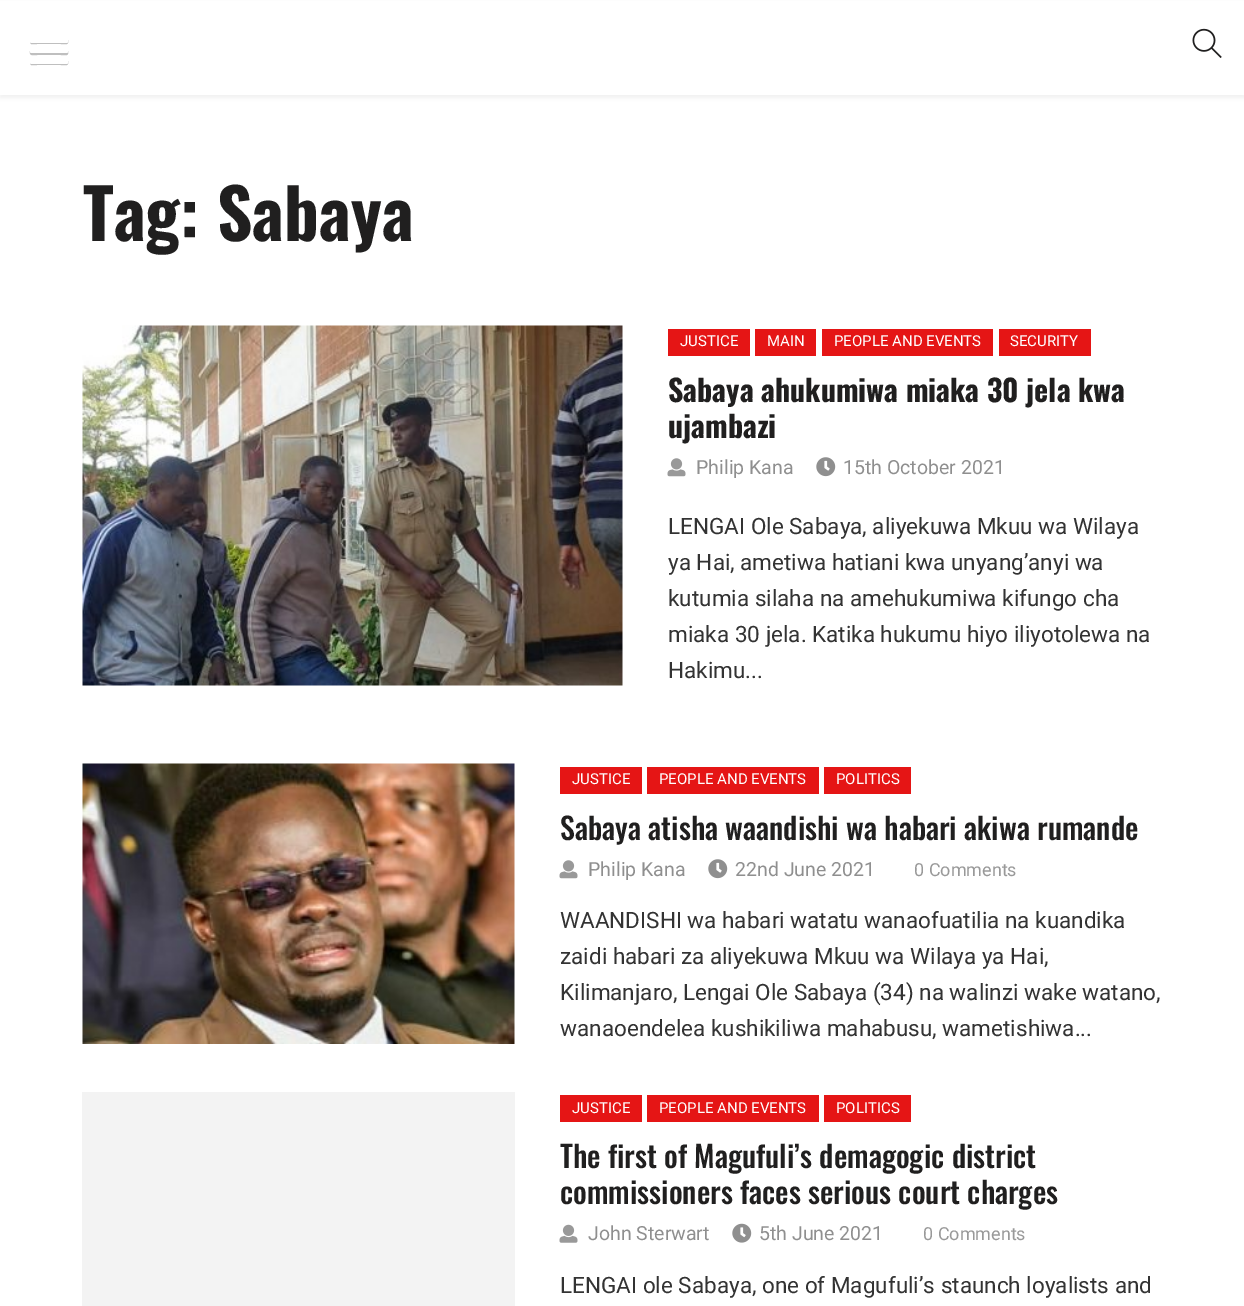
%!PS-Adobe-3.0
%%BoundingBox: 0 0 1244 1306
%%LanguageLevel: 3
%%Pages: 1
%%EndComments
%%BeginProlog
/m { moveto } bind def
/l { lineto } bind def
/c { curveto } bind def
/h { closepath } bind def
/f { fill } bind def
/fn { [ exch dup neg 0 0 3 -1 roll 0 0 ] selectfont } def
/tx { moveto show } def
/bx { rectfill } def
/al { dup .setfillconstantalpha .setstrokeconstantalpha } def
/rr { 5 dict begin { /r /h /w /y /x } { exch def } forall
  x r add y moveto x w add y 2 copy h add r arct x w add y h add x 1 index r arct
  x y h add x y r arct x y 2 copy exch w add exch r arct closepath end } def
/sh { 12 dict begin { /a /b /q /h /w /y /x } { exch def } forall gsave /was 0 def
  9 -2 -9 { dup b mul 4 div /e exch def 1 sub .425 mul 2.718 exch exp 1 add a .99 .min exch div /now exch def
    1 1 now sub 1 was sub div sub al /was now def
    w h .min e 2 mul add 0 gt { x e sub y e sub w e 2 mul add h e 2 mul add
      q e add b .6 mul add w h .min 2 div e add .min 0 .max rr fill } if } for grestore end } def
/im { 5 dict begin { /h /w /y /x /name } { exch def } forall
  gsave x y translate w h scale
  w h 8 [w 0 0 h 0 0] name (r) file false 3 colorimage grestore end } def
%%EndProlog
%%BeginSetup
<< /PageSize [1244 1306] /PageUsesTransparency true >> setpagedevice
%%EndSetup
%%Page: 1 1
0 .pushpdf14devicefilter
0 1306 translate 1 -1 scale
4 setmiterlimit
1 setgray
0 0 1244 1306 bx
0 setgray
0 3 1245 95 0 2 0.06 sh
1 setgray
0 1 1244 94 bx
0.749 setgray
30 40.5 m 30 45.5 31.5 44 37.5 44 c 60.5 44 l 63 44 67.5 45 68 43 c 68 42 68.5 40 67.5 39.5 c 67.5 40.5 l 67.5 41.5 67 42 66 42 c 31.5 42 l 30.5 42 30 41.5 30 40.5 c h f
1 setgray
30 38 38 5 1.5 rr f
0.749 setgray
30 51 m 29 56.5 33 55 37.5 55 c 60.5 55 l 63 55 67.5 56 68 54 c 68 53 68.5 51 67.5 50.5 c 67.5 51 l 67.5 52 67 52.5 66 52.5 c 31.5 52.5 l 31 52.5 30 52 30 51 c h f
1 setgray
30 48 38 5 1.5 rr f
0.749 setgray
30 61.5 m 30 66.5 31.5 65 37.5 65 c 60.5 65 l 63 65 67.5 66 68 64 c 68 63 68.5 61 67.5 60.5 c 67.5 61.5 l 67.5 62.5 67 63 66 63 c 31.5 63 l 30.5 63 30 62.5 30 61.5 c h f
1 setgray
30 59 38 5 1.5 rr f
(image0.raw) 1192 28 30 30 im
/Oswald-Bold 69 fn
0.125 0.122 0.122 setrgbcolor
(Tag: Sabaya) 83 241 tx
(image1.raw) 82 325 541 361 im
0.898 0.082 0.082 setrgbcolor
668 329 82 27 bx
/Roboto-Regular 15 fn
1 setgray
(JUSTICE) 680 346 tx
0.898 0.082 0.082 setrgbcolor
755 329 61 27 bx
1 setgray
(MAIN) 767 346 tx
0.898 0.082 0.082 setrgbcolor
822 329 171 27 bx
1 setgray
(PEOPLE AND EVENTS) 834 346 tx
0.898 0.082 0.082 setrgbcolor
999 329 92 27 bx
1 setgray
(SECURITY) 1010 346 tx
/Oswald-Bold 30 fn
0.125 0.122 0.122 setrgbcolor
(Sabaya ahukumiwa miaka 30 jela kwa) 668 402 tx
(ujambazi) 668 438 tx
(image2.raw) 667 458 19 19 im
/Roboto-Regular 19.5 fn
0.561 setgray
(Philip Kana) 696 474 tx
(image3.raw) 816 457 20 20 im
(15th October 2021) 843 474 tx
/Roboto-Regular 22.5 fn
0.2 setgray
(LENGAI Ole Sabaya, aliyekuwa Mkuu wa Wilaya) 668 534 tx
(ya Hai, ametiwa hatiani kwa unyang’anyi wa) 668 570 tx
(kutumia silaha na amehukumiwa kifungo cha) 668 606 tx
(miaka 30 jela. Katika hukumu hiyo iliyotolewa na) 668 642 tx
(Hakimu...) 668 678 tx
(image4.raw) 82 763 433 281 im
0.898 0.082 0.082 setrgbcolor
560 767 82 27 bx
/Roboto-Regular 15 fn
1 setgray
(JUSTICE) 572 784 tx
0.898 0.082 0.082 setrgbcolor
647 767 172 27 bx
1 setgray
(PEOPLE AND EVENTS) 659 784 tx
0.898 0.082 0.082 setrgbcolor
824 767 87 27 bx
1 setgray
(POLITICS) 836 784 tx
/Oswald-Medium 30 fn
0.125 0.122 0.122 setrgbcolor
(Sabaya atisha waandishi wa habari akiwa rumande) 560 840 tx
(image2.raw) 559 860 19 19 im
/Roboto-Regular 19.5 fn
0.561 setgray
(Philip Kana) 588 876 tx
(image3.raw) 708 859 20 20 im
(22nd June 2021) 735 876 tx
/Roboto-Regular 18 fn
0.6 setgray
(0 Comments) 914 876 tx
/Roboto-Regular 22.5 fn
0.2 setgray
(WAANDISHI wa habari watatu wanaofuatilia na kuandika) 560 928 tx
(zaidi habari za aliyekuwa Mkuu wa Wilaya ya Hai,) 560 964 tx
(Kilimanjaro, Lengai Ole Sabaya \(34\) na walinzi wake watano,) 560 1000 tx
(wanaoendelea kushikiliwa mahabusu, wametishiwa...) 560 1036 tx
0.953 setgray
82 1092 433 214 bx
0.898 0.082 0.082 setrgbcolor
560 1095 82 27 bx
/Roboto-Regular 15 fn
1 setgray
(JUSTICE) 572 1113 tx
0.898 0.082 0.082 setrgbcolor
647 1095 172 27 bx
1 setgray
(PEOPLE AND EVENTS) 659 1113 tx
0.898 0.082 0.082 setrgbcolor
824 1095 87 27 bx
1 setgray
(POLITICS) 836 1113 tx
/Oswald-Medium 30 fn
0.125 0.122 0.122 setrgbcolor
(The first of Magufuli’s demagogic district) 560 1168 tx
(commissioners faces serious court charges) 560 1204 tx
(image5.raw) 559 1224 19 19 im
/Roboto-Regular 19.5 fn
0.561 setgray
(John Sterwart) 588 1240 tx
(image6.raw) 732 1223 20 20 im
(5th June 2021) 759 1240 tx
/Roboto-Regular 18 fn
0.6 setgray
(0 Comments) 923 1240 tx
/Roboto-Regular 22.5 fn
0.2 setgray
(LENGAI ole Sabaya, one of Magufuli’s staunch loyalists and) 560 1293 tx
.poppdf14devicefilter showpage
%%EOF
